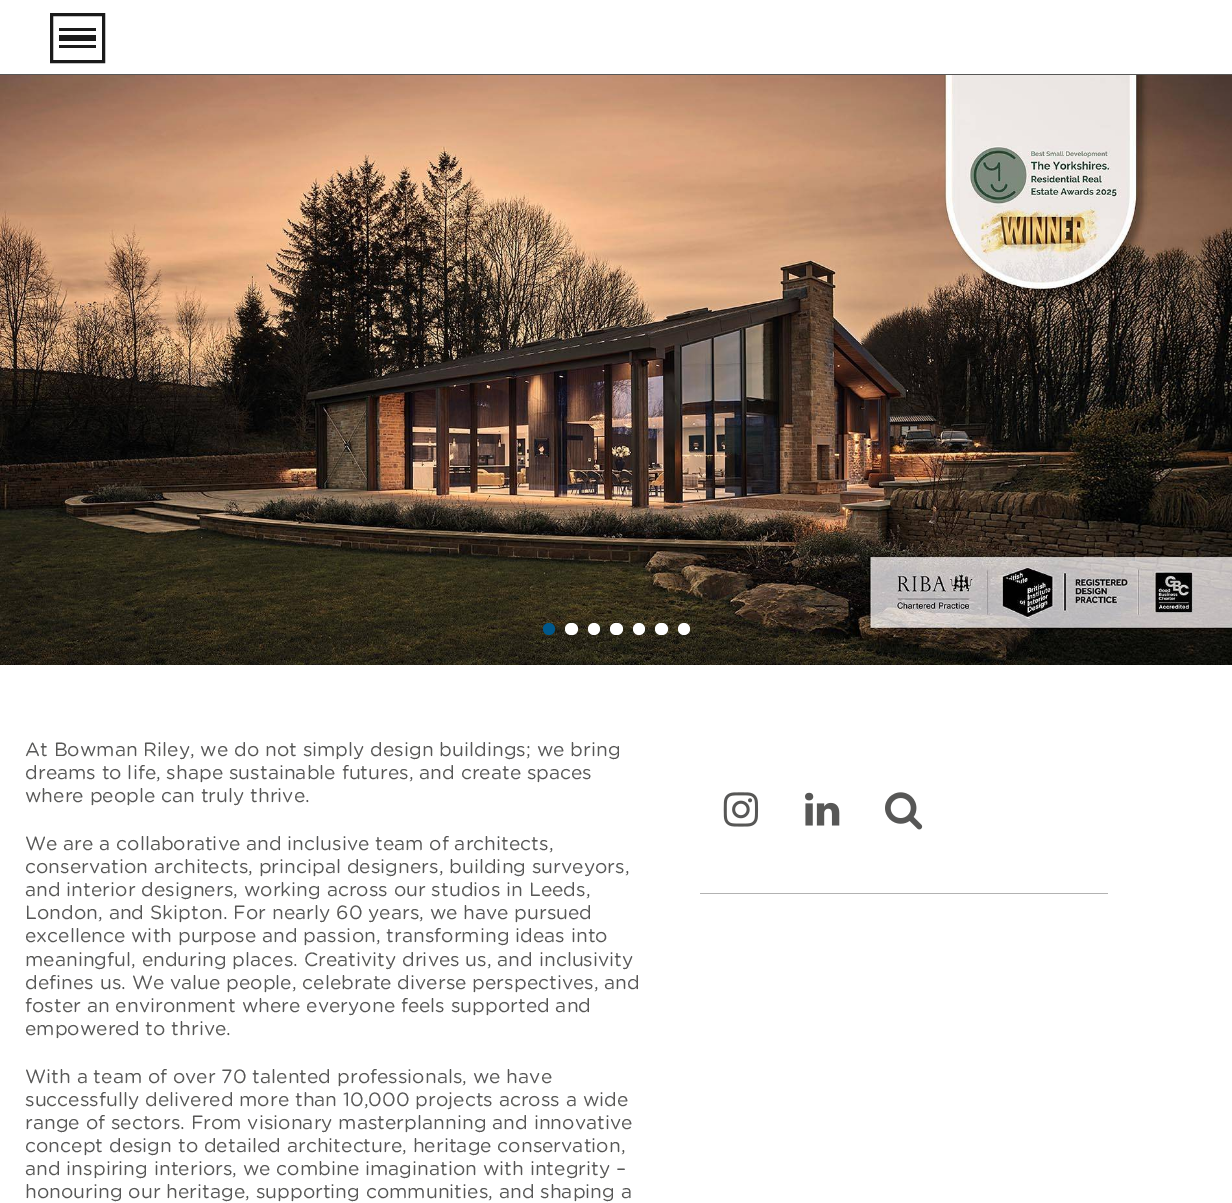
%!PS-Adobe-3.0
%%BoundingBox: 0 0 1232 1203
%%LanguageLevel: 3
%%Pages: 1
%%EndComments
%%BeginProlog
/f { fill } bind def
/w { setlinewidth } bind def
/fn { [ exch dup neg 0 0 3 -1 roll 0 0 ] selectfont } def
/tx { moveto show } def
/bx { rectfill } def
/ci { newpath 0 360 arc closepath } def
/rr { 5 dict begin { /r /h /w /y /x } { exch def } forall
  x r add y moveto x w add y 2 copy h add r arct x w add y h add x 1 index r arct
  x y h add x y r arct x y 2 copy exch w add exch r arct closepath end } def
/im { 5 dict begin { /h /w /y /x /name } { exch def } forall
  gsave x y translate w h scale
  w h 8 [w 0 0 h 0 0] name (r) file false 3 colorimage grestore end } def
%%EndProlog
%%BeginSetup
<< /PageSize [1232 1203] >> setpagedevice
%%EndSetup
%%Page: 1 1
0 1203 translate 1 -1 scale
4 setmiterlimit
1 setgray
0 0 1232 1203 bx
0.341 0.341 0.337 setrgbcolor
0 74 1232 1 bx
0.102 setgray
3 w
51.5 14.5 52 47 rectstroke
59 35 37 6 bx
59 28 37 3 bx
59 45 37 3 bx
(image0.raw) 0 75 1232 590 im
0 0.341 0.541 setrgbcolor
549 629 6 ci f
1 setgray
565 623 13 12 6 rr f
594 629 6 ci f
610 623 13 12 6 rr f
639 629 6 ci f
655 623 13 12 6 rr f
684 629 6 ci f
/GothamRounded-Regular 19.2 fn
0.341 0.341 0.337 setrgbcolor
(At Bowman Riley, we do not simply design buildings; we bring) 25 756 tx
(dreams to life, shape sustainable futures, and create spaces) 25 779 tx
(where people can truly thrive.) 25 802 tx
(We are a collaborative and inclusive team of architects,) 25 850 tx
(conservation architects, principal designers, building surveyors,) 25 873 tx
(and interior designers, working across our studios in Leeds,) 25 896 tx
(London, and Skipton. For nearly 60 years, we have pursued) 25 919 tx
(excellence with purpose and passion, transforming ideas into) 25 942 tx
(meaningful, enduring places. Creativity drives us, and inclusivity) 25 966 tx
(defines us. We value people, celebrate diverse perspectives, and) 25 989 tx
(foster an environment where everyone feels supported and) 25 1012 tx
(empowered to thrive.) 25 1035 tx
(With a team of over 70 talented professionals, we have) 25 1083 tx
(successfully delivered more than 10,000 projects across a wide) 25 1106 tx
(range of sectors. From visionary masterplanning and innovative) 25 1129 tx
(concept design to detailed architecture, heritage conservation,) 25 1152 tx
(and inspiring interiors, we combine imagination with integrity –) 25 1175 tx
(honouring our heritage, supporting communities, and shaping a) 25 1198 tx
0.698 setgray
700 893 408 1 bx
(image1.raw) 723 792 36 35 im
(image2.raw) 805 792 35 34 im
(image3.raw) 885 792 38 38 im
showpage
%%EOF
